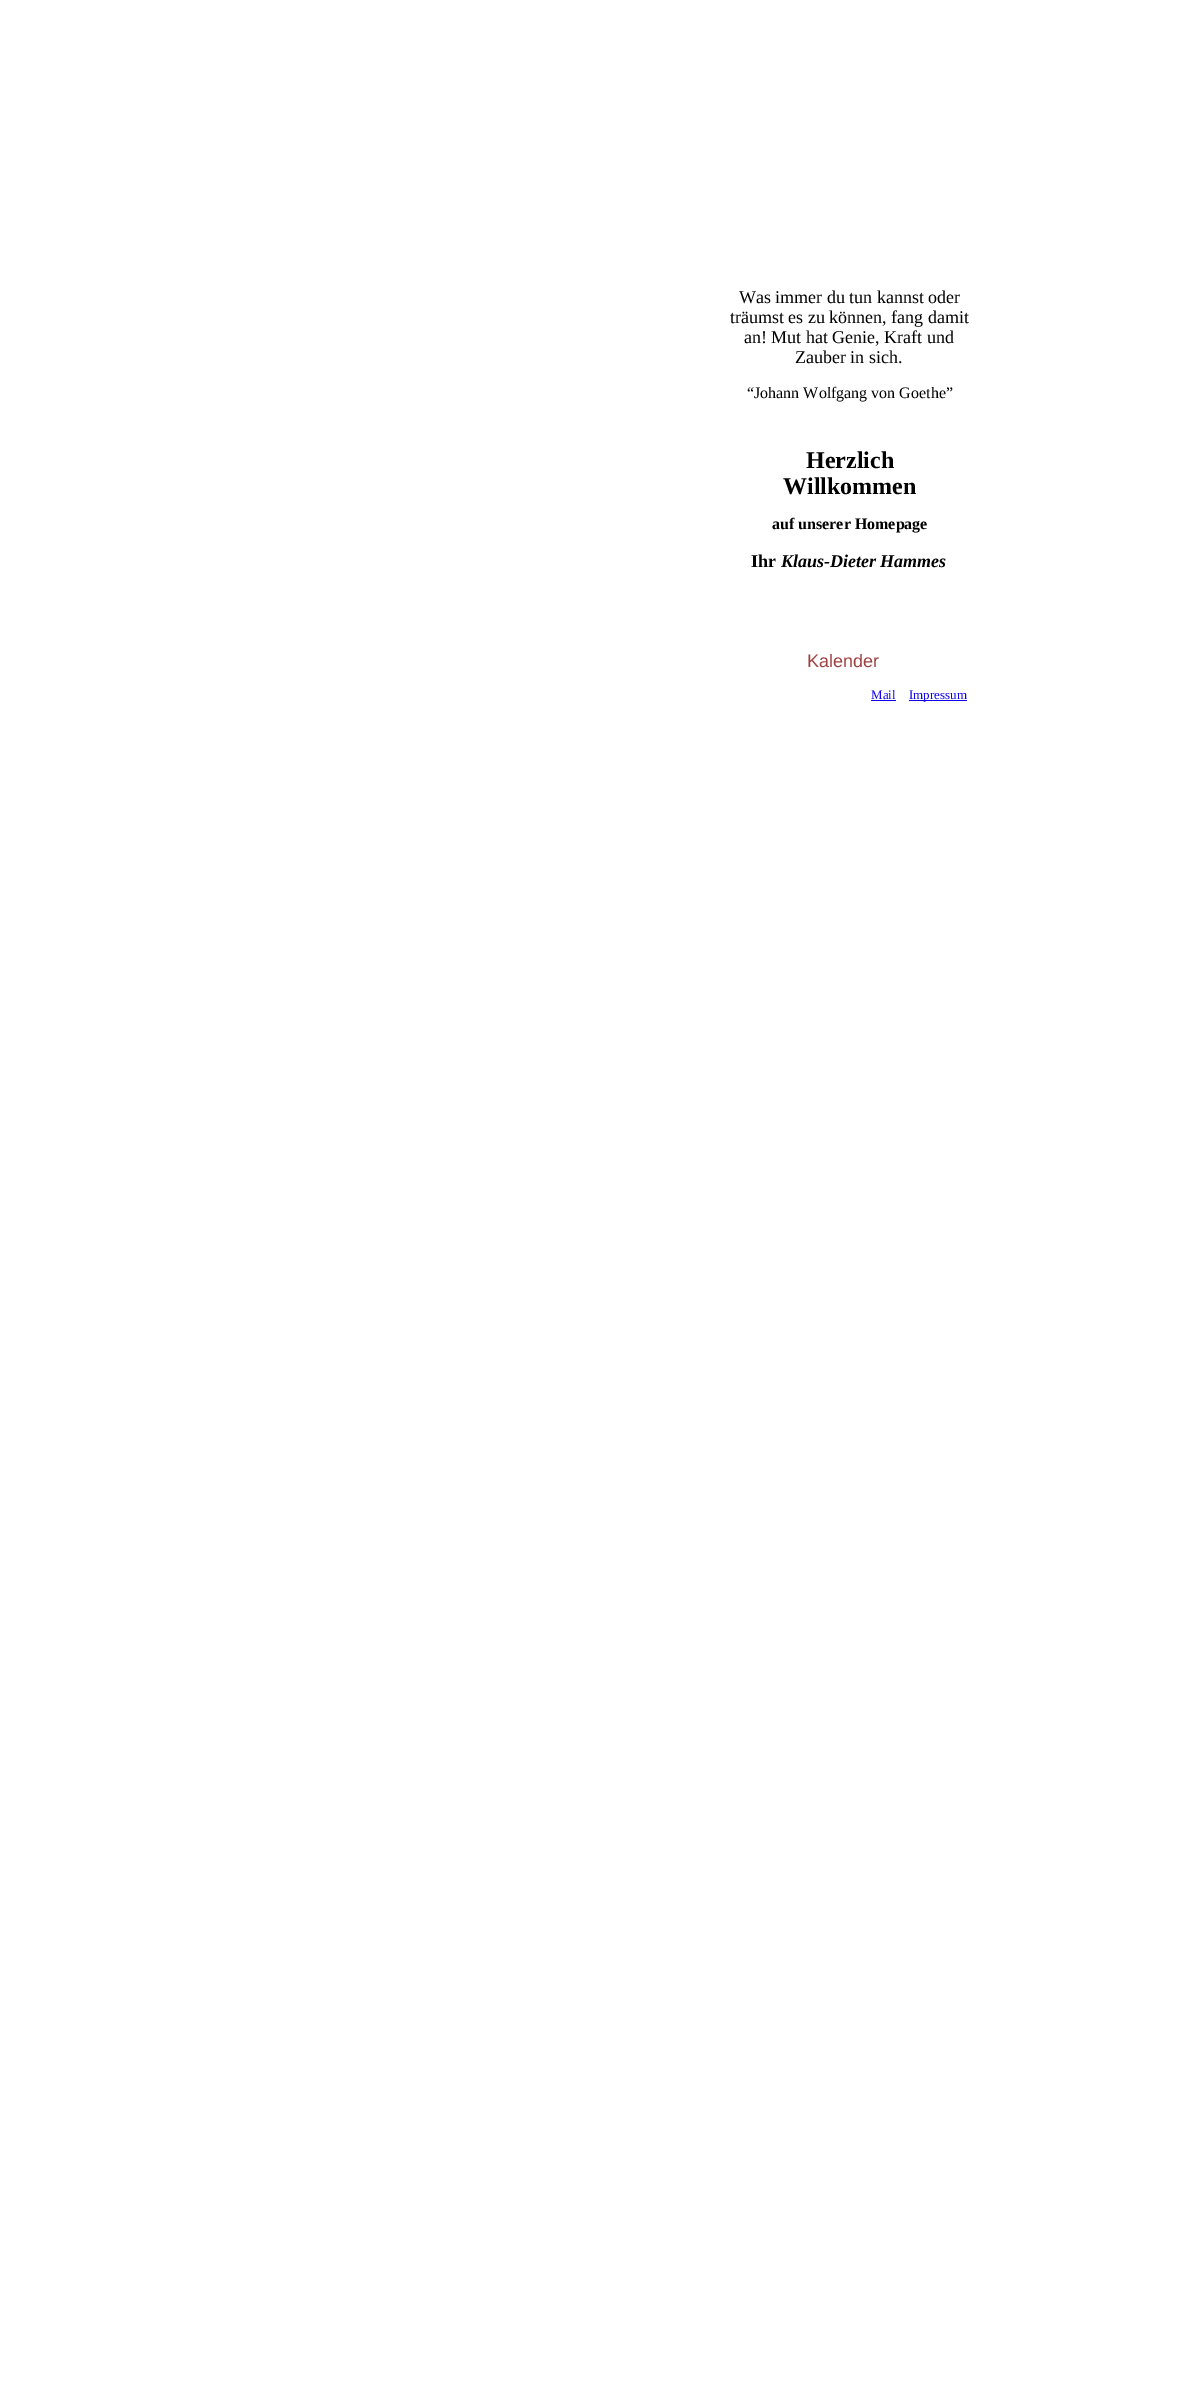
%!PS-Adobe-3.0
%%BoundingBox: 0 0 1204 2390
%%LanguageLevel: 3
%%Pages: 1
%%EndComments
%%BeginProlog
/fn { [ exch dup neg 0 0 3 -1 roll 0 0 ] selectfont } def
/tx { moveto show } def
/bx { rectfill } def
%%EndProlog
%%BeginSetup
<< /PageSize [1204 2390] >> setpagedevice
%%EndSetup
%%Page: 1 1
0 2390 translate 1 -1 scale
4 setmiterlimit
1 setgray
0 0 1204 2390 bx
/LiberationSerif-Regular 18 fn
0 setgray
(Was immer du tun kannst oder) 739 303 tx
(träumst es zu können, fang damit) 730 323 tx
(an! Mut hat Genie, Kraft und) 744 343 tx
(Zauber in sich.) 795 363 tx
/LiberationSerif-Regular 16 fn
(“Johann Wolfgang von Goethe”) 747 398 tx
/LiberationSerif-Bold 24 fn
(Herzlich) 806 468 tx
(Willkommen) 783 494 tx
/LiberationSerif-Bold 16 fn
(auf unserer Homepage) 772 529 tx
/LiberationSerif-Bold 18 fn
(Ihr) 751 567 tx
/LiberationSerif-BoldItalic 18 fn
(Klaus-Dieter Hammes) 781 567 tx
/LiberationSans-Regular 18 fn
0.62 0.255 0.255 setrgbcolor
(Kalender) 807 667 tx
/LiberationSerif-Regular 13 fn
0.055 0 0.933 setrgbcolor
(Mail) 871 699 tx
871 700 25 1 bx
909 700 58 1 bx
(Impressum) 909 699 tx
showpage
%%EOF
